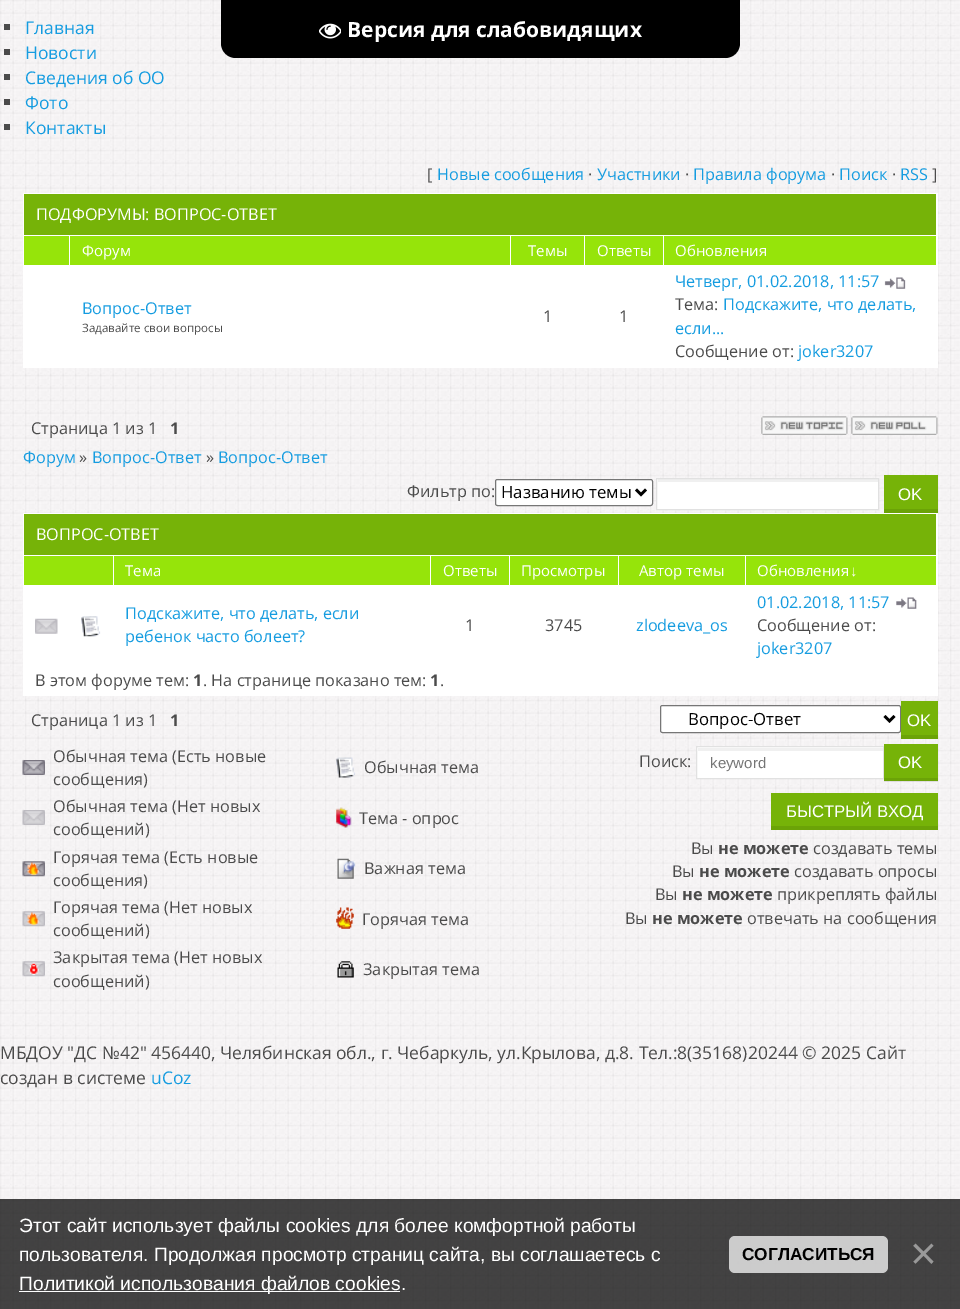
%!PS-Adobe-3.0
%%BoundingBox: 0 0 960 1309
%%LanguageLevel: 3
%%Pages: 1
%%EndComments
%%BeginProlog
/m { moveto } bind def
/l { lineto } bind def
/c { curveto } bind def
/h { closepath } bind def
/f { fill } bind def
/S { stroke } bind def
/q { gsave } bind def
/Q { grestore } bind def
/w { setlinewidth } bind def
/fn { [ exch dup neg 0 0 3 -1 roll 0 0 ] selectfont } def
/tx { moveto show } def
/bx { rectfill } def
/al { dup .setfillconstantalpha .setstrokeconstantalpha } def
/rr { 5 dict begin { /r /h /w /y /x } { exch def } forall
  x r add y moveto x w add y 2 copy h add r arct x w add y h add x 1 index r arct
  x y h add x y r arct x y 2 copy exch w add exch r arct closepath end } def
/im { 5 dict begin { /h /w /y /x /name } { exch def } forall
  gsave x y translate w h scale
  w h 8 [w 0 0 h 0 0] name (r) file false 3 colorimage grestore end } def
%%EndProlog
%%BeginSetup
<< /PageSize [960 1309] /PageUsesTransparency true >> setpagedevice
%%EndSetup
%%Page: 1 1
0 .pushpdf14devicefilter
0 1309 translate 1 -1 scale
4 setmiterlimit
1 setgray
0 0 960 1309 bx
(image0.raw) 0 0 960 1309 im
0.294 setgray
4 24 6 6 bx
/OpenSans-Regular 17.5 fn
0.082 0.612 0.878 setrgbcolor
(Главная) 25 34 tx
0.294 setgray
4 49 6 6 bx
0.082 0.612 0.878 setrgbcolor
(Новости) 25 59 tx
0.294 setgray
4 74 6 6 bx
0.082 0.612 0.878 setrgbcolor
(Сведения об ОО) 25 84 tx
0.294 setgray
4 99 6 6 bx
0.082 0.612 0.878 setrgbcolor
(Фото) 25 109 tx
0.294 setgray
4 124 6 6 bx
0.082 0.612 0.878 setrgbcolor
(Контакты) 25 134 tx
0 setgray
221 0 m 740 0 l 740 43 l 740 51.5 733.5 58 725 58 c 236 58 l 227.5 58 221 51.5 221 43 c h f
(image1.raw) 319 23 22 16 im
/OpenSans-Bold 21 fn
1 setgray
(Версия для слабовидящих) 347 37 tx
/OpenSans-Regular 16.25 fn
0.294 setgray
([) 427 180 tx
0.082 0.612 0.878 setrgbcolor
(Новые сообщения) 437 180 tx
0.294 setgray
(·) 588 180 tx
0.082 0.612 0.878 setrgbcolor
(Участники) 597 180 tx
0.294 setgray
(·) 685 180 tx
0.082 0.612 0.878 setrgbcolor
(Правила форума) 693 180 tx
0.294 setgray
(·) 831 180 tx
0.082 0.612 0.878 setrgbcolor
(Поиск) 839 180 tx
0.294 setgray
(·) 892 180 tx
0.082 0.612 0.878 setrgbcolor
(RSS) 900 180 tx
0.294 setgray
(]) 932 180 tx
1 setgray
23 193 915 175 bx
0.463 0.702 0.031 setrgbcolor
24 194 912 41 bx
1 setgray
(ПОДФОРУМЫ: ВОПРОС-ОТВЕТ) 36 220 tx
0.588 0.894 0.039 setrgbcolor
24 236 45 29 bx
70 236 440 29 bx
/OpenSans-Regular 15 fn
1 setgray
(Форум) 82 256 tx
0.588 0.894 0.039 setrgbcolor
511 236 73 29 bx
1 setgray
(Темы) 528 256 tx
0.588 0.894 0.039 setrgbcolor
585 236 78 29 bx
1 setgray
(Ответы) 597 256 tx
0.588 0.894 0.039 setrgbcolor
664 236 272 29 bx
1 setgray
(Обновления) 675 256 tx
/OpenSans-Regular 16.25 fn
0.082 0.612 0.878 setrgbcolor
(Вопрос-Ответ) 82 314 tx
/OpenSans-Regular 11.6 fn
0.294 setgray
(Задавайте свои вопросы) 82 332 tx
/OpenSans-Regular 16.25 fn
(1) 543 322 tx
(1) 619 322 tx
0.082 0.612 0.878 setrgbcolor
(Четверг, 01.02.2018, 11:57) 675 287 tx
(image2.raw) 884 277 22 12 im
0.294 setgray
(Тема:) 675 310 tx
0.082 0.612 0.878 setrgbcolor
(Подскажите, что делать,) 723 310 tx
(если...) 675 334 tx
0.294 setgray
(Сообщение от:) 675 357 tx
0.082 0.612 0.878 setrgbcolor
(joker3207) 798 357 tx
0.294 setgray
(Страница 1 из 1) 31 434 tx
/OpenSans-Bold 16.25 fn
(1) 170 434 tx
(image3.raw) 761 416 87 19 im
(image4.raw) 851 416 87 19 im
/OpenSans-Regular 16.25 fn
0.082 0.612 0.878 setrgbcolor
(Форум) 23 463 tx
0.294 setgray
(») 79 463 tx
0.082 0.612 0.878 setrgbcolor
(Вопрос-Ответ) 92 463 tx
0.294 setgray
(») 206 463 tx
0.082 0.612 0.878 setrgbcolor
(Вопрос-Ответ) 218 463 tx
0.294 setgray
(Фильтр по:) 407 497 tx
1 setgray
495.5 479.5 157 26 2 rr q f Q
0.463 setgray
S
0 setgray
2.5 w
636 489.5 m 641 494.5 l 646 489.5 l S
/OpenSans-Regular 16.75 fn
(Названию темы) 501 498 tx
1 setgray
657 479 221 30 bx
0.941 setgray
658 479 220 3 bx
0.882 setgray
1 w
656.5 478.5 222 31 rectstroke
0.463 0.702 0.031 setrgbcolor
884 475 54 34 bx
0.42 0.639 0.027 setrgbcolor
884 509 54 4 bx
/LiberationSans-Regular 16.75 fn
1 setgray
(OK) 898 500 tx
23 513 915 183 bx
0.463 0.702 0.031 setrgbcolor
24 514 912 41 bx
/OpenSans-Regular 16.25 fn
1 setgray
(ВОПРОС-ОТВЕТ) 36 540 tx
0.588 0.894 0.039 setrgbcolor
24 556 89 29 bx
114 556 316 29 bx
/OpenSans-Regular 15 fn
1 setgray
(Тема) 125 576 tx
0.588 0.894 0.039 setrgbcolor
431 556 78 29 bx
1 setgray
(Ответы) 443 576 tx
0.588 0.894 0.039 setrgbcolor
510 556 108 29 bx
1 setgray
(Просмотры) 521 576 tx
0.588 0.894 0.039 setrgbcolor
619 556 126 29 bx
1 setgray
(Автор темы) 639 576 tx
0.588 0.894 0.039 setrgbcolor
746 556 190 29 bx
1 setgray
(Обновления) 757 576 tx
/LiberationSans-Regular 15 fn
(↓) 850 576 tx
(image5.raw) 35 618 23 16 im
(image6.raw) 81 616 20 21 im
/OpenSans-Regular 16.25 fn
0.082 0.612 0.878 setrgbcolor
(Подскажите, что делать, если) 125 619 tx
(ребенок часто болеет?) 125 642 tx
0.294 setgray
(1) 465 631 tx
(3745) 545 631 tx
0.082 0.612 0.878 setrgbcolor
(zlodeeva_os) 636 631 tx
(01.02.2018, 11:57) 757 608 tx
(image7.raw) 896 597 21 12 im
0.294 setgray
(Сообщение от:) 757 631 tx
0.082 0.612 0.878 setrgbcolor
(joker3207) 757 654 tx
0.294 setgray
(В этом форуме тем:) 35 686 tx
/OpenSans-Bold 16.25 fn
(1) 193 686 tx
/OpenSans-Regular 16.25 fn
(. На странице показано тем:) 203 686 tx
/OpenSans-Bold 16.25 fn
(1) 430 686 tx
/OpenSans-Regular 16.25 fn
(.) 440 686 tx
(Страница 1 из 1) 31 726 tx
/OpenSans-Bold 16.25 fn
(1) 170 726 tx
1 setgray
660.5 705.5 240 27 2 rr q f Q
0.463 setgray
S
0 setgray
2.5 w
884.5 716 m 889.5 721 l 894.5 716 l S
/OpenSans-Regular 16.75 fn
(Вопрос-Ответ) 688 725 tx
0.463 0.702 0.031 setrgbcolor
901 701 37 34 bx
0.42 0.639 0.027 setrgbcolor
901 735 37 4 bx
/LiberationSans-Regular 16.75 fn
1 setgray
(OK) 907 726 tx
(image8.raw) 22 760 23 15 im
/OpenSans-Regular 16.25 fn
0.294 setgray
(Обычная тема \(Есть новые) 53 762 tx
(сообщения\)) 53 785 tx
(image9.raw) 336 757 20 21 im
(Обычная тема) 364 773 tx
(image10.raw) 22 810 23 15 im
(Обычная тема \(Нет новых) 53 812 tx
(сообщений\)) 53 835 tx
(image11.raw) 336 807 16 21 im
(Тема - опрос) 359 824 tx
(image12.raw) 22 861 23 16 im
(Горячая тема \(Есть новые) 53 863 tx
(сообщения\)) 53 886 tx
(image13.raw) 337 858 19 21 im
(Важная тема) 364 874 tx
(image14.raw) 22 911 23 16 im
(Горячая тема \(Нет новых) 53 913 tx
(сообщений\)) 53 936 tx
(image15.raw) 336 907 18 22 im
(Горячая тема) 362 925 tx
(image16.raw) 22 961 23 16 im
(Закрытая тема \(Нет новых) 53 963 tx
(сообщений\)) 53 987 tx
(image17.raw) 337 961 17 17 im
(Закрытая тема) 363 975 tx
(Поиск:) 639 767 tx
1 setgray
697 747 186 31 bx
0.941 setgray
698 748 185 3 bx
0.882 setgray
1 w
696.5 746.5 187 32 rectstroke
/LiberationSans-Regular 15 fn
0.459 setgray
(keyword) 710 768 tx
0.463 0.702 0.031 setrgbcolor
884 744 54 37 bx
0.09 al
0 setgray
884 778 54 4 bx
/LiberationSans-Regular 16.75 fn
1 al
1 setgray
(OK) 898 768 tx
0.463 0.702 0.031 setrgbcolor
771 793 167 33 bx
0.42 0.639 0.027 setrgbcolor
771 826 167 4 bx
1 setgray
(БЫСТРЫЙ ВХОД) 786 817 tx
/OpenSans-Regular 16.25 fn
0.294 setgray
(Вы) 691 854 tx
/OpenSans-Bold 16.25 fn
(не можете) 718 854 tx
/OpenSans-Regular 16.25 fn
(создавать темы) 813 854 tx
(Вы) 672 877 tx
/OpenSans-Bold 16.25 fn
(не можете) 699 877 tx
/OpenSans-Regular 16.25 fn
(создавать опросы) 794 877 tx
(Вы) 655 900 tx
/OpenSans-Bold 16.25 fn
(не можете) 682 900 tx
/OpenSans-Regular 16.25 fn
(прикреплять файлы) 777 900 tx
(Вы) 625 924 tx
/OpenSans-Bold 16.25 fn
(не можете) 652 924 tx
/OpenSans-Regular 16.25 fn
(отвечать на сообщения) 747 924 tx
/OpenSans-Regular 17.5 fn
(МБДОУ "ДС №42" 456440, Челябинская обл., г. Чебаркуль, ул.Крылова, д.8. Тел.:8\(35168\)20244 © 2025 Сайт) 0 1059 tx
(создан в системе) 0 1084 tx
0.082 0.612 0.878 setrgbcolor
(uCoz) 151 1084 tx
0.73 al
0 setgray
0 1199 960 110 bx
/LiberationSans-Regular 19.25 fn
1 al
1 setgray
(Этот сайт использует файлы cookies для более комфортной работы) 19 1232 tx
(пользователя. Продолжая просмотр страниц сайта, вы соглашаетесь с) 19 1261 tx
19 1291 381 1 bx
(Политикой использования файлов cookies.) 19 1290 tx
0.73 al
729 1236 159 37 6 rr f
/LiberationSans-Bold 17.25 fn
1 al
0 setgray
(СОГЛАСИТЬСЯ) 742 1260 tx
/LiberationSans-Regular 46 fn
0.6 setgray
(×) 910 1269 tx
.poppdf14devicefilter showpage
%%EOF
